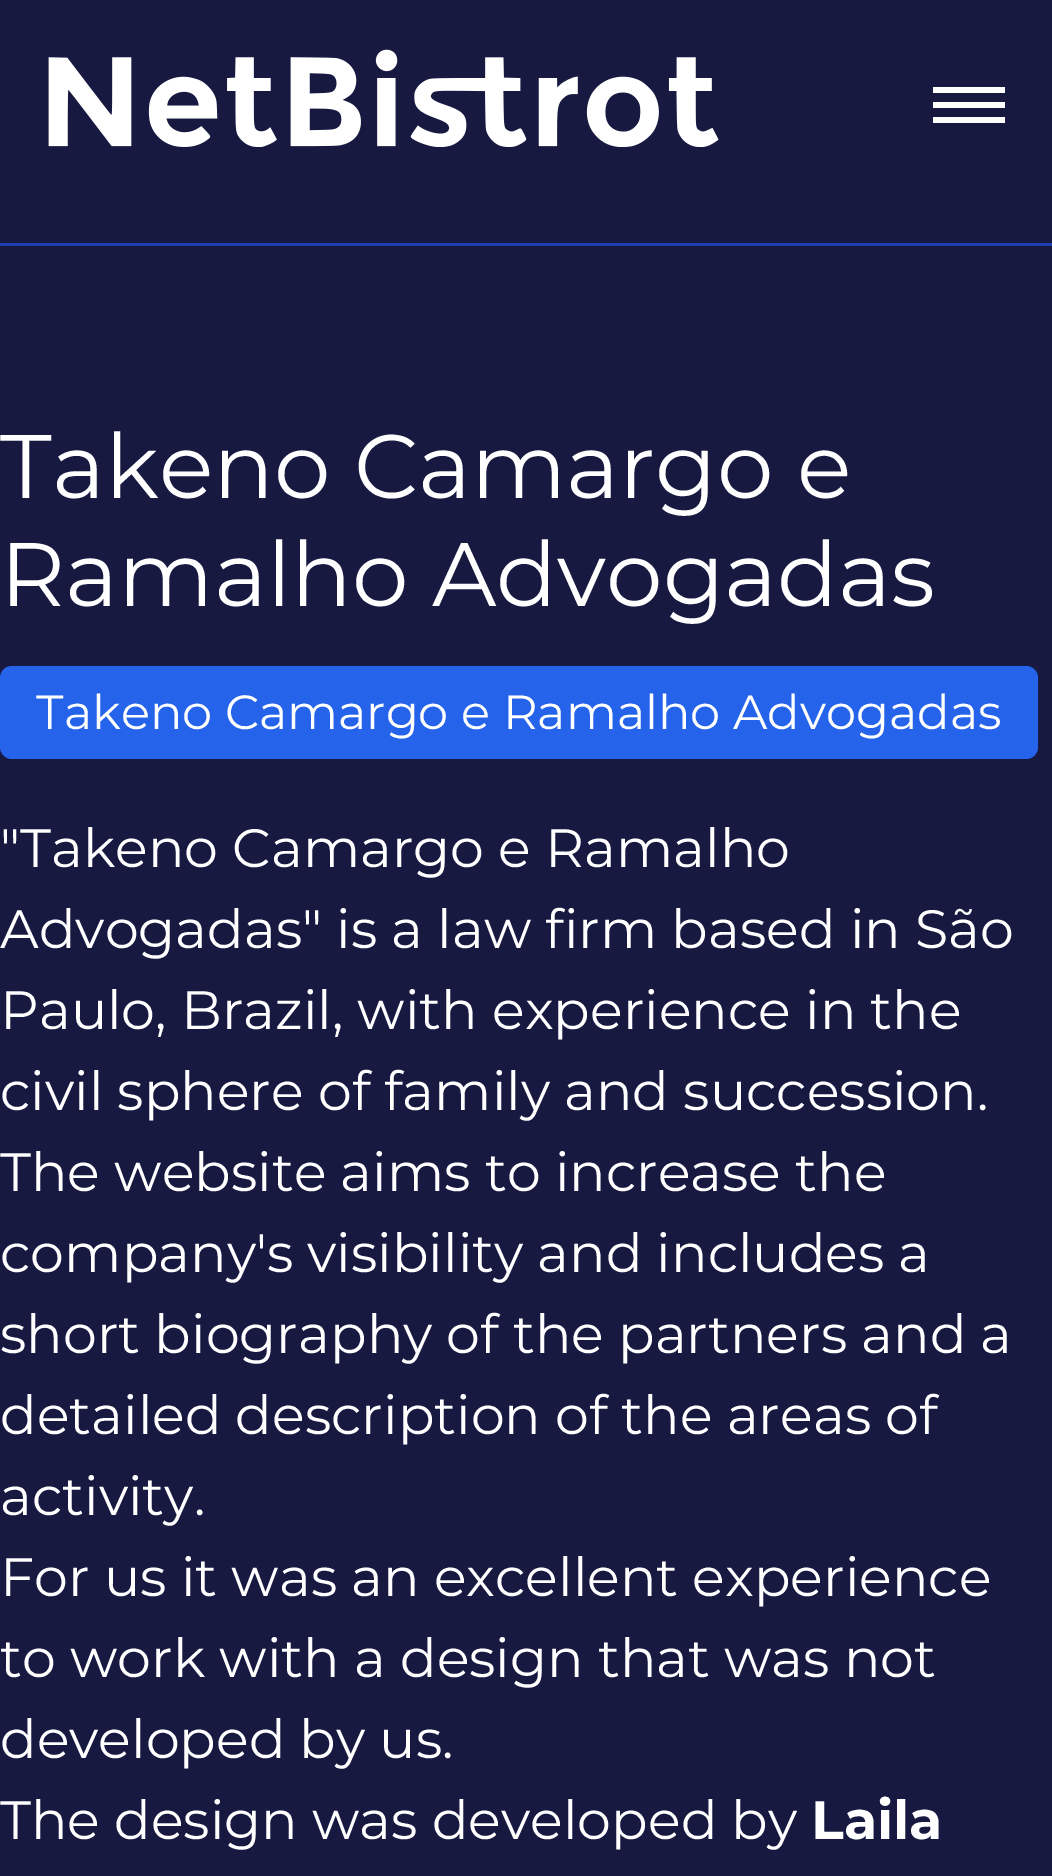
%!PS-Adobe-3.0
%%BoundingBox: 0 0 1052 1876
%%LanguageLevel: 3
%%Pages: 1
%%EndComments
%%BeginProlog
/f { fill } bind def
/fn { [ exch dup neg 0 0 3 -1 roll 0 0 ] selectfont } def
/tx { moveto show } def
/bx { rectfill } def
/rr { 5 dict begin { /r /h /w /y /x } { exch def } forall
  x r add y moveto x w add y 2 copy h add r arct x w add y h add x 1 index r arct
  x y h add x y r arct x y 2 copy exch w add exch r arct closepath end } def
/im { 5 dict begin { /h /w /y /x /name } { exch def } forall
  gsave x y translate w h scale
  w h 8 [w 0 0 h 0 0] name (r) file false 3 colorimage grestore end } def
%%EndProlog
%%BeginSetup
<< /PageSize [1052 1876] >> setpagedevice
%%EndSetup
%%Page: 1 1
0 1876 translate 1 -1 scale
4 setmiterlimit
0.09 0.098 0.255 setrgbcolor
0 0 1052 1876 bx
0.118 0.251 0.686 setrgbcolor
0 243 1052 3 bx
(image0.raw) 48 49 671 98 im
1 setgray
933 102 72 6 bx
933 87 72 6 bx
933 117 72 6 bx
/Montserrat-Regular 90 fn
(Takeno Camargo e) 0 498 tx
(Ramalho Advogadas) 0 606 tx
0.145 0.388 0.922 setrgbcolor
0 666 1038 93 12 rr f
/Montserrat-Regular 48 fn
1 setgray
(Takeno Camargo e Ramalho Advogadas) 36 729 tx
/Montserrat-Regular 54 fn
("Takeno Camargo e Ramalho) 0 867 tx
(Advogadas" is a law firm based in São) 0 948 tx
(Paulo, Brazil, with experience in the) 0 1029 tx
(civil sphere of family and succession.) 0 1110 tx
(The website aims to increase the) 0 1191 tx
(company's visibility and includes a) 0 1272 tx
(short biography of the partners and a) 0 1353 tx
(detailed description of the areas of) 0 1434 tx
(activity.) 0 1515 tx
(For us it was an excellent experience) 0 1596 tx
(to work with a design that was not) 0 1677 tx
(developed by us.) 0 1758 tx
(The design was developed by) 0 1839 tx
/Montserrat-Bold 54 fn
(Laila) 811 1839 tx
showpage
%%EOF
